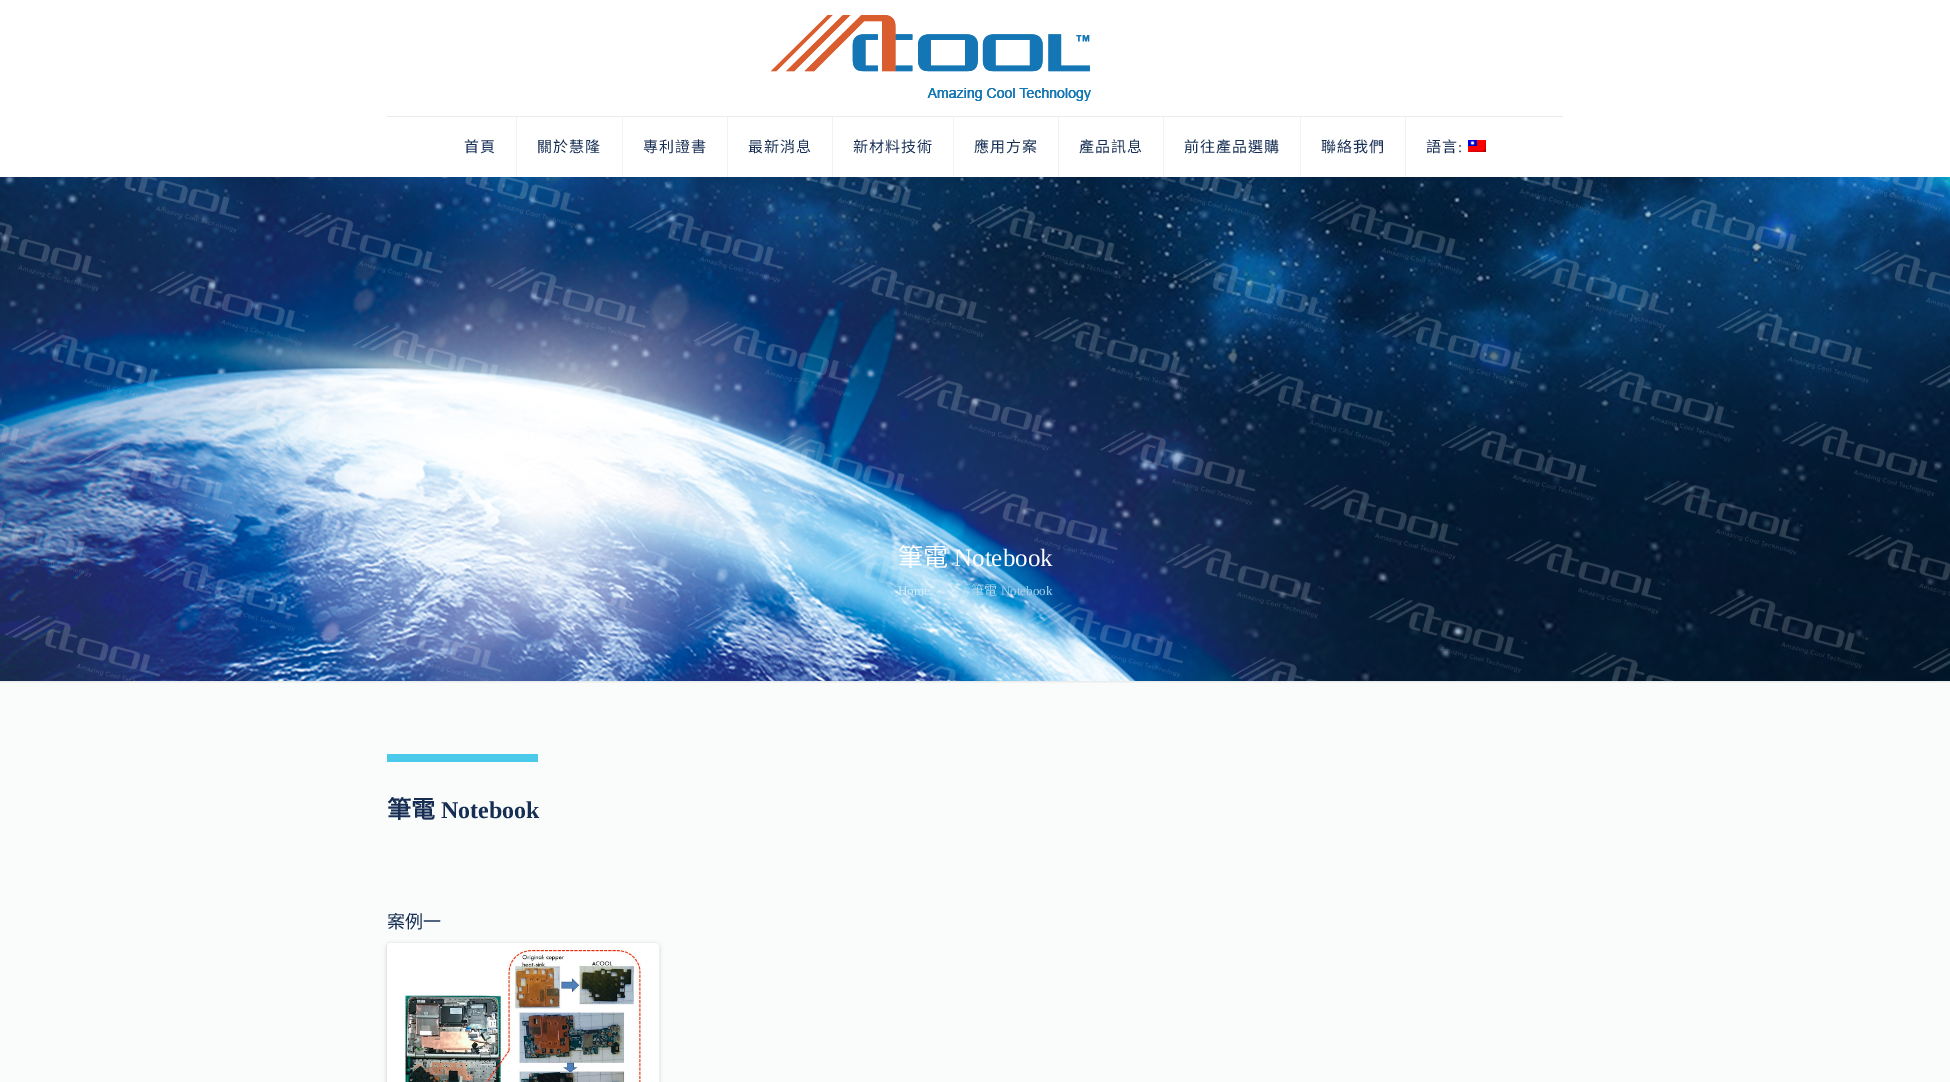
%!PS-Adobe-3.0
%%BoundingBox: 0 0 1950 1082
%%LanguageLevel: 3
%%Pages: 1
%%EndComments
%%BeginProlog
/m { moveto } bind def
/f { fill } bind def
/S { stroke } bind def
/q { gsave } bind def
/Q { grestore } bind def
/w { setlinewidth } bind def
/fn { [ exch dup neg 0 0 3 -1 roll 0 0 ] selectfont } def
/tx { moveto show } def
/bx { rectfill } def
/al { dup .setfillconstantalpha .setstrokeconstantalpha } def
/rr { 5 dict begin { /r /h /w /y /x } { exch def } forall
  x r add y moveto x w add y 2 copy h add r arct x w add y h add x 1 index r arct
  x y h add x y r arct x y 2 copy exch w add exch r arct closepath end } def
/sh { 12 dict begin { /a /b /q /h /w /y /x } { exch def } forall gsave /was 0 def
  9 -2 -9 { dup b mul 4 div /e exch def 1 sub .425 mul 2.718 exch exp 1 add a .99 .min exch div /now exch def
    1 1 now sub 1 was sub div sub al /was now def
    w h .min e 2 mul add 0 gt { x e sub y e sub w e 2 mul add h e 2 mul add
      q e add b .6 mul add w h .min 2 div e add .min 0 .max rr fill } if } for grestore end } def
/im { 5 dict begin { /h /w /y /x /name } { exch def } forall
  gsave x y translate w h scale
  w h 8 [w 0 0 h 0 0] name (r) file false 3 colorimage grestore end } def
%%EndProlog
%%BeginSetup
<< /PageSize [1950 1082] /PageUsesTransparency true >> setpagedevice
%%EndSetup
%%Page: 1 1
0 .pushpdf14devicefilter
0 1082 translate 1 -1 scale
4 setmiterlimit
0.98 0.988 0.988 setrgbcolor
0 0 1950 1082 bx
(image0.raw) 0 177 1950 504 im
1 setgray
0 0 1950 177 bx
0.922 setgray
387 116 1176 1 bx
(image1.raw) 771 15 320 86 im
0.949 setgray
516 117 1 60 bx
/NotoSansCJKTC-Regular 15 fn
0.09 0.18 0.329 setrgbcolor
464 152 m 1 0 (首頁) ashow
0.949 setgray
622 117 1 60 bx
0.09 0.18 0.329 setrgbcolor
537 152 m 1 0 (關於慧隆) ashow
0.949 setgray
727 117 1 60 bx
0.09 0.18 0.329 setrgbcolor
643 152 m 1 0 (專利證書) ashow
0.949 setgray
832 117 1 60 bx
0.09 0.18 0.329 setrgbcolor
748 152 m 1 0 (最新消息) ashow
0.949 setgray
953 117 1 60 bx
0.09 0.18 0.329 setrgbcolor
853 152 m 1 0 (新材料技術) ashow
0.949 setgray
1058 117 1 60 bx
0.09 0.18 0.329 setrgbcolor
974 152 m 1 0 (應用方案) ashow
0.949 setgray
1163 117 1 60 bx
0.09 0.18 0.329 setrgbcolor
1079 152 m 1 0 (產品訊息) ashow
0.949 setgray
1300 117 1 60 bx
0.09 0.18 0.329 setrgbcolor
1184 152 m 1 0 (前往產品選購) ashow
0.949 setgray
1405 117 1 60 bx
0.09 0.18 0.329 setrgbcolor
1321 152 m 1 0 (聯絡我們) ashow
1426 152 m 1 0 (語言) ashow
/LiberationSerif-Regular 15 fn
1458 152 m 1 0 (:) ashow
(image2.raw) 1468 140 18 12 im
/NotoSansCJKTC-Regular 25 fn
1 setgray
(筆電) 898 566 tx
/LiberationSerif-Regular 25 fn
(Notebook) 954 566 tx
/LiberationSerif-Regular 13 fn
0.827 0.925 0.98 setrgbcolor
(Home) 898 595 tx
(image3.raw) 950 587 4 7 im
/NotoSansCJKTC-Regular 13 fn
0.667 0.839 0.933 setrgbcolor
(筆電) 971 595 tx
/LiberationSerif-Regular 13 fn
0.663 0.808 0.91 setrgbcolor
(Notebook) 1001 595 tx
(image4.raw) 0 681 1950 2 im
0.294 0.788 0.91 setrgbcolor
387 754 151 8 bx
/NotoSansCJKTC-Bold 24 fn
0.09 0.18 0.329 setrgbcolor
(筆電) 387 818 tx
/LiberationSerif-Bold 24 fn
(Notebook) 441 818 tx
/NotoSansCJKTC-Regular 18 fn
(案例一) 387 928 tx
0 setgray
387 944 272 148 4 2 0.2 sh
1 setgray
389 945 268 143 2 rr q f Q
4 w
S
(image5.raw) 404 947 237 135 im
.poppdf14devicefilter showpage
%%EOF
